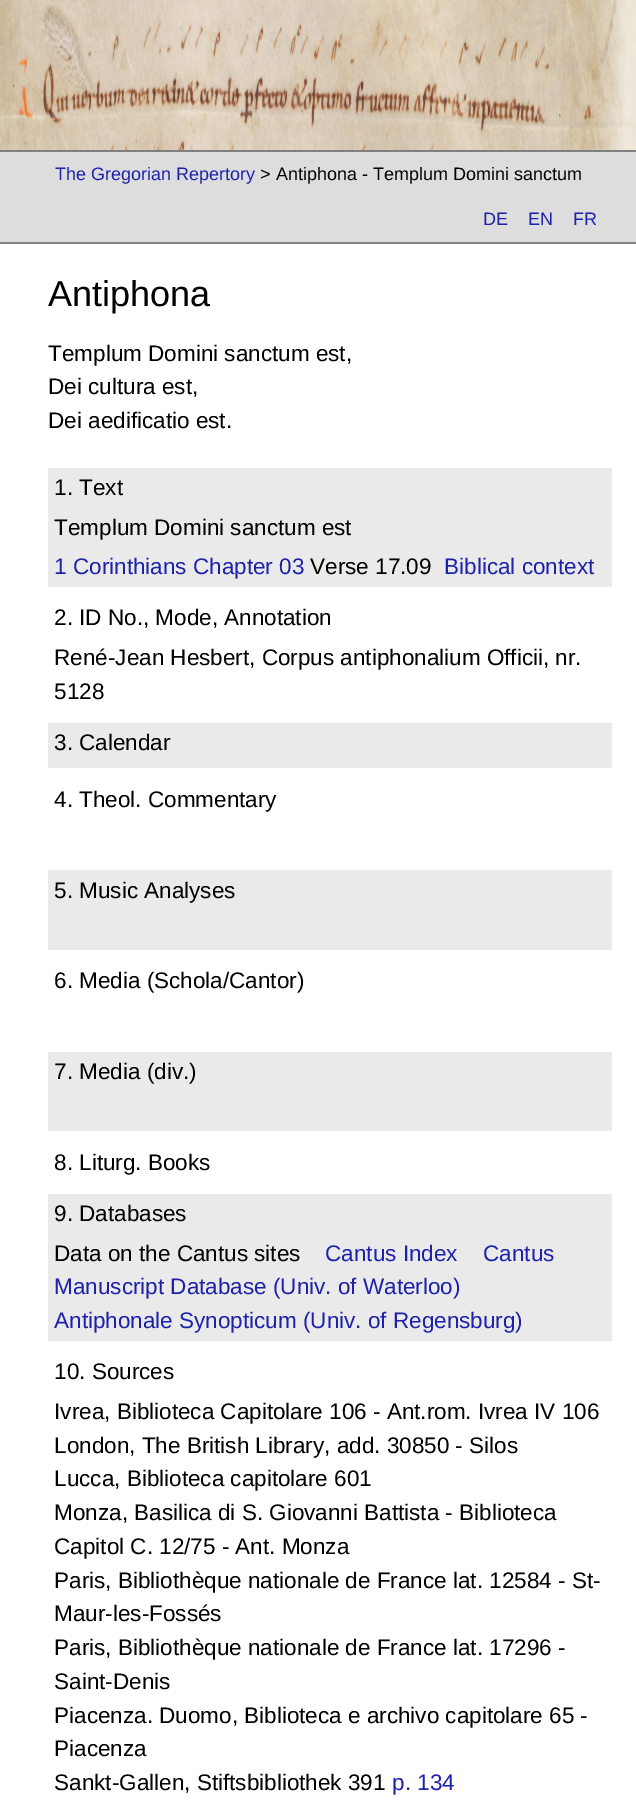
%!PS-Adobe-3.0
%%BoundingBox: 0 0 636 1813
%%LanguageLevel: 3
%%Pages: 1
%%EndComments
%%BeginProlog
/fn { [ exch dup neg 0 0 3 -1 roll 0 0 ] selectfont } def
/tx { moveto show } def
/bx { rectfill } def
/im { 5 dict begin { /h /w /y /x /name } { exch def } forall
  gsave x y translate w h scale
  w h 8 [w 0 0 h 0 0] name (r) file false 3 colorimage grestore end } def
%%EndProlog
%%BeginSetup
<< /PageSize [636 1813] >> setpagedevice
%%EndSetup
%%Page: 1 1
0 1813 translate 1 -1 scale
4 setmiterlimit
1 setgray
0 0 636 1813 bx
(image0.raw) 0 0 636 150 im
0.867 setgray
0 152 636 90 bx
0.502 setgray
0 150 636 2 bx
0 242 636 2 bx
/LiberationSans-Regular 18 fn
0.118 0.133 0.667 setrgbcolor
(The Gregorian Repertory) 55 180 tx
0 setgray
(> Antiphona - Templum Domini sanctum) 260 180 tx
0.118 0.133 0.667 setrgbcolor
(DE) 483 225 tx
(EN) 528 225 tx
(FR) 573 225 tx
/LiberationSans-Regular 36 fn
0 setgray
(Antiphona) 48 306 tx
/LiberationSans-Regular 22.5 fn
(Templum Domini sanctum est,) 48 361 tx
(Dei cultura est,) 48 394 tx
(Dei aedificatio est.) 48 428 tx
0.918 setgray
48 468 564 119 bx
0 setgray
(1. Text) 54 495 tx
(Templum Domini sanctum est) 54 535 tx
0.118 0.133 0.667 setrgbcolor
(1 Corinthians Chapter 03) 54 574 tx
0 setgray
(Verse 17.09) 310 574 tx
0.118 0.133 0.667 setrgbcolor
(Biblical context) 444 574 tx
0 setgray
(2. ID No., Mode, Annotation) 54 625 tx
(René-Jean Hesbert, Corpus antiphonalium Officii, nr.) 54 665 tx
(5128) 54 699 tx
0.918 setgray
48 723 564 45 bx
0 setgray
(3. Calendar) 54 750 tx
(4. Theol. Commentary) 54 807 tx
0.918 setgray
48 870 564 80 bx
0 setgray
(5. Music Analyses) 54 898 tx
(6. Media \(Schola/Cantor\)) 54 988 tx
0.918 setgray
48 1052 564 79 bx
0 setgray
(7. Media \(div.\)) 54 1079 tx
(8. Liturg. Books) 54 1170 tx
0.918 setgray
48 1194 564 147 bx
0 setgray
(9. Databases) 54 1221 tx
(Data on the Cantus sites) 54 1261 tx
0.118 0.133 0.667 setrgbcolor
(Cantus Index) 325 1261 tx
(Cantus) 483 1261 tx
(Manuscript Database \(Univ. of Waterloo\)) 54 1294 tx
(Antiphonale Synopticum \(Univ. of Regensburg\)) 54 1328 tx
0 setgray
(10. Sources) 54 1379 tx
(Ivrea, Biblioteca Capitolare 106 - Ant.rom. Ivrea IV 106) 54 1419 tx
(London, The British Library, add. 30850 - Silos) 54 1453 tx
(Lucca, Biblioteca capitolare 601) 54 1486 tx
(Monza, Basilica di S. Giovanni Battista - Biblioteca) 54 1520 tx
(Capitol C. 12/75 - Ant. Monza) 54 1554 tx
(Paris, Bibliothèque nationale de France lat. 12584 - St-) 54 1588 tx
(Maur-les-Fossés) 54 1621 tx
(Paris, Bibliothèque nationale de France lat. 17296 -) 54 1655 tx
(Saint-Denis) 54 1689 tx
(Piacenza. Duomo, Biblioteca e archivo capitolare 65 -) 54 1723 tx
(Piacenza) 54 1756 tx
(Sankt-Gallen, Stiftsbibliothek 391) 54 1790 tx
0.118 0.133 0.667 setrgbcolor
(p. 134) 392 1790 tx
showpage
%%EOF
